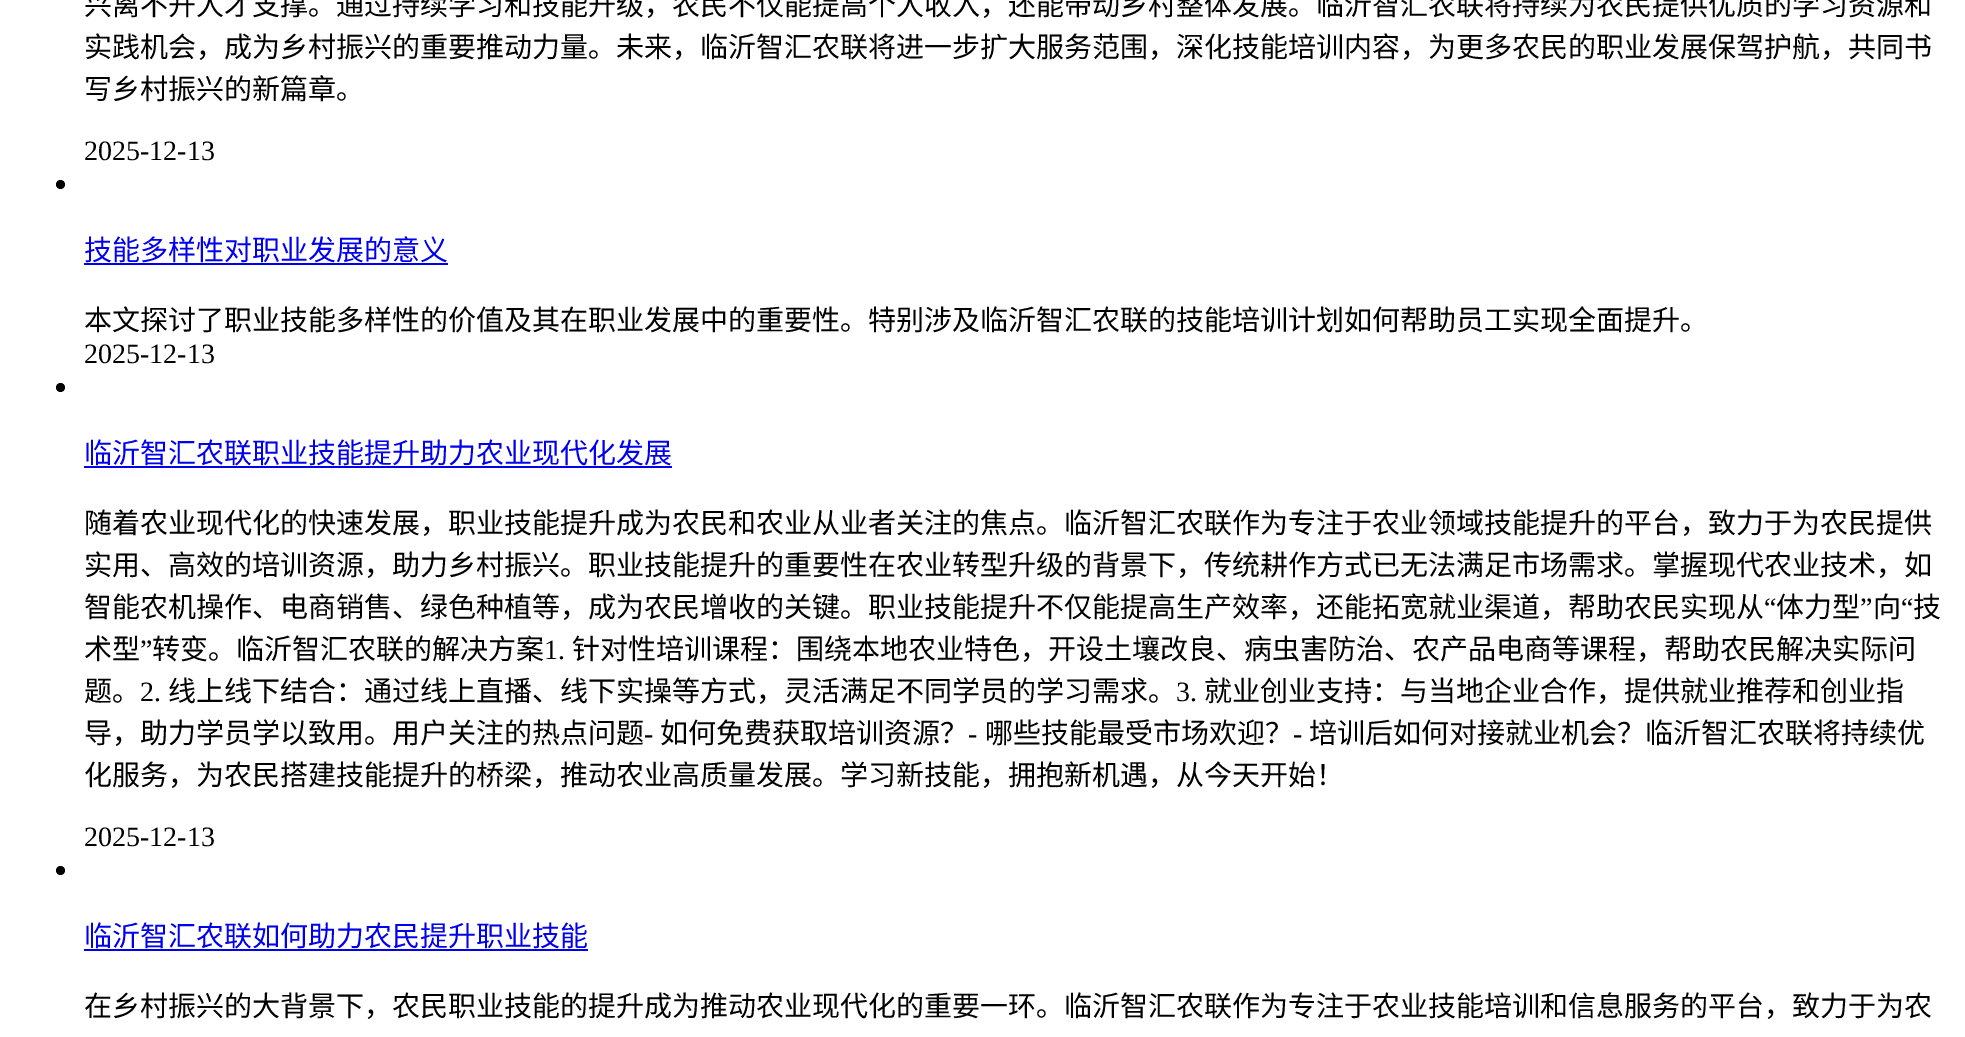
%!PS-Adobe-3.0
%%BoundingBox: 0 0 1965 1037
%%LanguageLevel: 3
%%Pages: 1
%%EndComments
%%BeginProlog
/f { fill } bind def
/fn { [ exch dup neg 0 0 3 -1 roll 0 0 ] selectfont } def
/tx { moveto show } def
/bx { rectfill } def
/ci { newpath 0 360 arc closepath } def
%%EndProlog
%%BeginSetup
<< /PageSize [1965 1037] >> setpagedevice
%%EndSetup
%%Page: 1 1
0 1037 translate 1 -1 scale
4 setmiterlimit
1 setgray
0 0 1965 1037 bx
/NotoSansCJKSC-Regular 28 fn
0 setgray
(兴离不开人才支撑。通过持续学习和技能升级，农民不仅能提高个人收入，还能带动乡村整体发展。临沂智汇农联将持续为农民提供优质的学习资源和) 84 15 tx
(实践机会，成为乡村振兴的重要推动力量。未来，临沂智汇农联将进一步扩大服务范围，深化技能培训内容，为更多农民的职业发展保驾护航，共同书) 84 57 tx
(写乡村振兴的新篇章。) 84 99 tx
/LiberationSerif-Regular 28 fn
(2025-12-13) 84 160 tx
60.5 184.5 4.5 ci f
/NotoSansCJKSC-Regular 28 fn
0 0 0.933 setrgbcolor
(技能多样性对职业发展的意义) 84 260 tx
84 263 364 2 bx
0 setgray
(本文探讨了职业技能多样性的价值及其在职业发展中的重要性。特别涉及临沂智汇农联的技能培训计划如何帮助员工实现全面提升。) 84 330 tx
/LiberationSerif-Regular 28 fn
(2025-12-13) 84 363 tx
60.5 387.5 4.5 ci f
/NotoSansCJKSC-Regular 28 fn
0 0 0.933 setrgbcolor
(临沂智汇农联职业技能提升助力农业现代化发展) 84 463 tx
84 466 588 2 bx
0 setgray
(随着农业现代化的快速发展，职业技能提升成为农民和农业从业者关注的焦点。临沂智汇农联作为专注于农业领域技能提升的平台，致力于为农民提供) 84 533 tx
(实用、高效的培训资源，助力乡村振兴。职业技能提升的重要性在农业转型升级的背景下，传统耕作方式已无法满足市场需求。掌握现代农业技术，如) 84 575 tx
(智能农机操作、电商销售、绿色种植等，成为农民增收的关键。职业技能提升不仅能提高生产效率，还能拓宽就业渠道，帮助农民实现从) 84 617 tx
/LiberationSerif-Regular 28 fn
(“) 1764 617 tx
/NotoSansCJKSC-Regular 28 fn
(体力型) 1776 617 tx
/LiberationSerif-Regular 28 fn
(”) 1860 617 tx
/NotoSansCJKSC-Regular 28 fn
(向) 1873 617 tx
/LiberationSerif-Regular 28 fn
(“) 1901 617 tx
/NotoSansCJKSC-Regular 28 fn
(技) 1913 617 tx
(术型) 84 659 tx
/LiberationSerif-Regular 28 fn
(”) 140 659 tx
/NotoSansCJKSC-Regular 28 fn
(转变。临沂智汇农联的解决方案) 152 659 tx
/LiberationSerif-Regular 28 fn
(1.) 544 659 tx
/NotoSansCJKSC-Regular 28 fn
(针对性培训课程：围绕本地农业特色，开设土壤改良、病虫害防治、农产品电商等课程，帮助农民解决实际问) 572 659 tx
(题。) 84 701 tx
/LiberationSerif-Regular 28 fn
(2.) 140 701 tx
/NotoSansCJKSC-Regular 28 fn
(线上线下结合：通过线上直播、线下实操等方式，灵活满足不同学员的学习需求。) 168 701 tx
/LiberationSerif-Regular 28 fn
(3.) 1176 701 tx
/NotoSansCJKSC-Regular 28 fn
(就业创业支持：与当地企业合作，提供就业推荐和创业指) 1204 701 tx
(导，助力学员学以致用。用户关注的热点问题) 84 743 tx
/LiberationSerif-Regular 28 fn
(-) 644 743 tx
/NotoSansCJKSC-Regular 28 fn
(如何免费获取培训资源？) 660 743 tx
/LiberationSerif-Regular 28 fn
(-) 968 743 tx
/NotoSansCJKSC-Regular 28 fn
(哪些技能最受市场欢迎？) 985 743 tx
/LiberationSerif-Regular 28 fn
(-) 1293 743 tx
/NotoSansCJKSC-Regular 28 fn
(培训后如何对接就业机会？临沂智汇农联将持续优) 1309 743 tx
(化服务，为农民搭建技能提升的桥梁，推动农业高质量发展。学习新技能，拥抱新机遇，从今天开始！) 84 785 tx
/LiberationSerif-Regular 28 fn
(2025-12-13) 84 846 tx
60.5 870.5 4.5 ci f
/NotoSansCJKSC-Regular 28 fn
0 0 0.933 setrgbcolor
(临沂智汇农联如何助力农民提升职业技能) 84 946 tx
84 949 504 2 bx
0 setgray
(在乡村振兴的大背景下，农民职业技能的提升成为推动农业现代化的重要一环。临沂智汇农联作为专注于农业技能培训和信息服务的平台，致力于为农) 84 1016 tx
showpage
%%EOF
